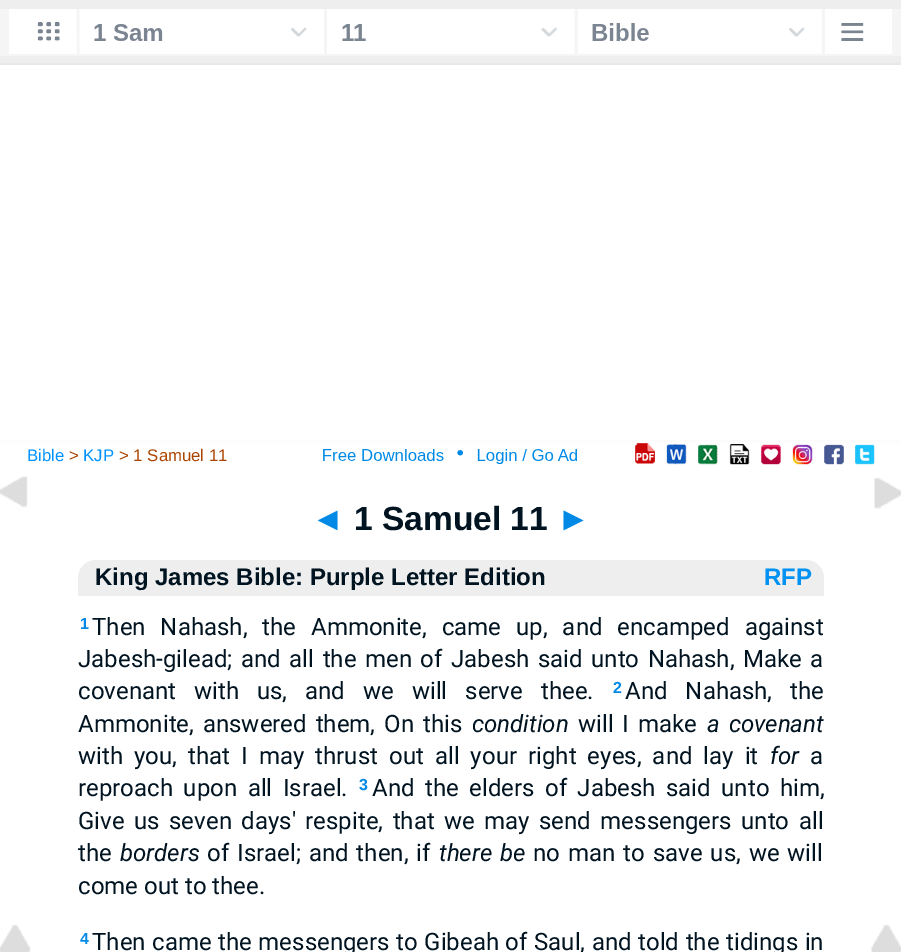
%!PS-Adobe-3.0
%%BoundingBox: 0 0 901 952
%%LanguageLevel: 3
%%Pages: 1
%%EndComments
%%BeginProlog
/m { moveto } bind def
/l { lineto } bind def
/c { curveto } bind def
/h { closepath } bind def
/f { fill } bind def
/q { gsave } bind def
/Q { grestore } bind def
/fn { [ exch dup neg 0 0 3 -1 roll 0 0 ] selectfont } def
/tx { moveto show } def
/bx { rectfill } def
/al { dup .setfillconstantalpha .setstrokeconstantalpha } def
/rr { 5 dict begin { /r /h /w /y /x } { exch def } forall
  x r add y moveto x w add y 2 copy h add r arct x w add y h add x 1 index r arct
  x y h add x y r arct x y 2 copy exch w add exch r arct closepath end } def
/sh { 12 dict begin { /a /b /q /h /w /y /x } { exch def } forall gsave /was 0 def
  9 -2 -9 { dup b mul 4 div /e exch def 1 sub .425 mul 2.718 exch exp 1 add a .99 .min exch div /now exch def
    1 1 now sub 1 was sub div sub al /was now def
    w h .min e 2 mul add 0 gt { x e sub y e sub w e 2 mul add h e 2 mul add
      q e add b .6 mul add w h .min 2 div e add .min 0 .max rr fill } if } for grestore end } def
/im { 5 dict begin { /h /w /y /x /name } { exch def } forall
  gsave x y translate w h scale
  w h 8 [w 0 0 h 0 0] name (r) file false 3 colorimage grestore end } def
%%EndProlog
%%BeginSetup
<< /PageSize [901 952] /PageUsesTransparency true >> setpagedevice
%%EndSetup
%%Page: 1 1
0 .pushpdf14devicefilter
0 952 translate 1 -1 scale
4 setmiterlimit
1 setgray
0 0 901 952 bx
q
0 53 m 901 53 l 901 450 l 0 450 l h 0 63 m 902 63 l 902 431 l 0 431 l h eoclip newpath
0.91 setgray
0 68 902 367 0 4.5 1 sh
Q
0.91 setgray
0 63 m 0 65 l 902 65 l 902 2 l 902 63 l h f
0.933 setgray
0 0 901 63 bx
0.961 setgray
0 9 901 47 bx
(image0.raw) 9 9 883 45 im
1 setgray
0 431 901 9 bx
/LiberationSans-Regular 16.75 fn
0 0.573 1 setrgbcolor
(Bible) 27 461 tx
0.667 0.267 0 setrgbcolor
(>) 69 461 tx
0 0.573 1 setrgbcolor
(KJP) 83 461 tx
0.667 0.267 0 setrgbcolor
(> 1 Samuel 11) 119 461 tx
(image1.raw) 323 449 254 15 im
(image2.raw) 635 443 240 22 im
(image3.raw) 0 476 28 32 im
(image4.raw) 874 477 27 32 im
/LiberationSans-Bold 33.5 fn
0 0.541 0.902 setrgbcolor
(◄) 311 530 tx
0 0.075 0.125 setrgbcolor
(1 Samuel 11) 354 530 tx
0 0.541 0.902 setrgbcolor
(►) 557 530 tx
(image5.raw) 0 924 31 28 im
0.933 setgray
96 560 m 806 560 l 816 560 824 568 824 578 c 824 596 l 78 596 l 78 578 l 78 568 86 560 96 560 c h f
/LiberationSans-Bold 24 fn
0 0.075 0.125 setrgbcolor
(King James Bible: Purple Letter Edition) 95 585 tx
0 0.573 0.949 setrgbcolor
(RFP) 764 585 tx
/LiberationSans-Bold 16 fn
0 0.541 0.902 setrgbcolor
(1) 80 629 tx
/Roboto-Regular 24 fn
0 0.075 0.125 setrgbcolor
92 635 m 9 0 32 (Then Nahash, the Ammonite, came up, and encamped against) widthshow
78 667 m 2.6 0 32 (Jabesh-gilead; and all the men of Jabesh said unto Nahash, Make a) widthshow
78 699 m 12 0 32 (covenant with us, and we will serve thee.) widthshow
/LiberationSans-Bold 16 fn
0 0.541 0.902 setrgbcolor
(2) 613 693 tx
/Roboto-Regular 24 fn
0 0.075 0.125 setrgbcolor
625 699 m 12 0 32 (And Nahash, the) widthshow
78 732 m 3 0 32 (Ammonite, answered them, On this) widthshow
/Roboto-Italic 24 fn
(condition) 472 732 tx
/Roboto-Regular 24 fn
578 732 m 3 0 32 (will I make) widthshow
/Roboto-Italic 24 fn
707 732 m 3 0 32 (a covenant) widthshow
/Roboto-Regular 24 fn
78 764 m 5.1 0 32 (with you, that I may thrust out all your right eyes, and lay it) widthshow
/Roboto-Italic 24 fn
(for) 770 764 tx
/Roboto-Regular 24 fn
(a) 810 764 tx
78 796 m 4.5 0 32 (reproach upon all Israel.) widthshow
/LiberationSans-Bold 16 fn
0 0.541 0.902 setrgbcolor
(3) 359 790 tx
/Roboto-Regular 24 fn
0 0.075 0.125 setrgbcolor
372 796 m 4.5 0 32 (And the elders of Jabesh said unto him,) widthshow
78 829 m 3.5 0 32 (Give us seven days' respite, that we may send messengers unto all) widthshow
(the) 78 861 tx
/Roboto-Italic 24 fn
(borders) 120 861 tx
/Roboto-Regular 24 fn
207 861 m 2 0 32 (of Israel; and then, if) widthshow
/Roboto-Italic 24 fn
439 861 m 2 0 32 (there be) widthshow
/Roboto-Regular 24 fn
533 861 m 2 0 32 (no man to save us, we will) widthshow
(come out to thee.) 78 894 tx
/LiberationSans-Bold 16 fn
0 0.541 0.902 setrgbcolor
(4) 80 944 tx
/Roboto-Regular 24 fn
0 0.075 0.125 setrgbcolor
92 950 m 0.6 0 32 (Then came the messengers to Gibeah of Saul, and told the tidings in) widthshow
(image6.raw) 871 924 30 28 im
.poppdf14devicefilter showpage
%%EOF
